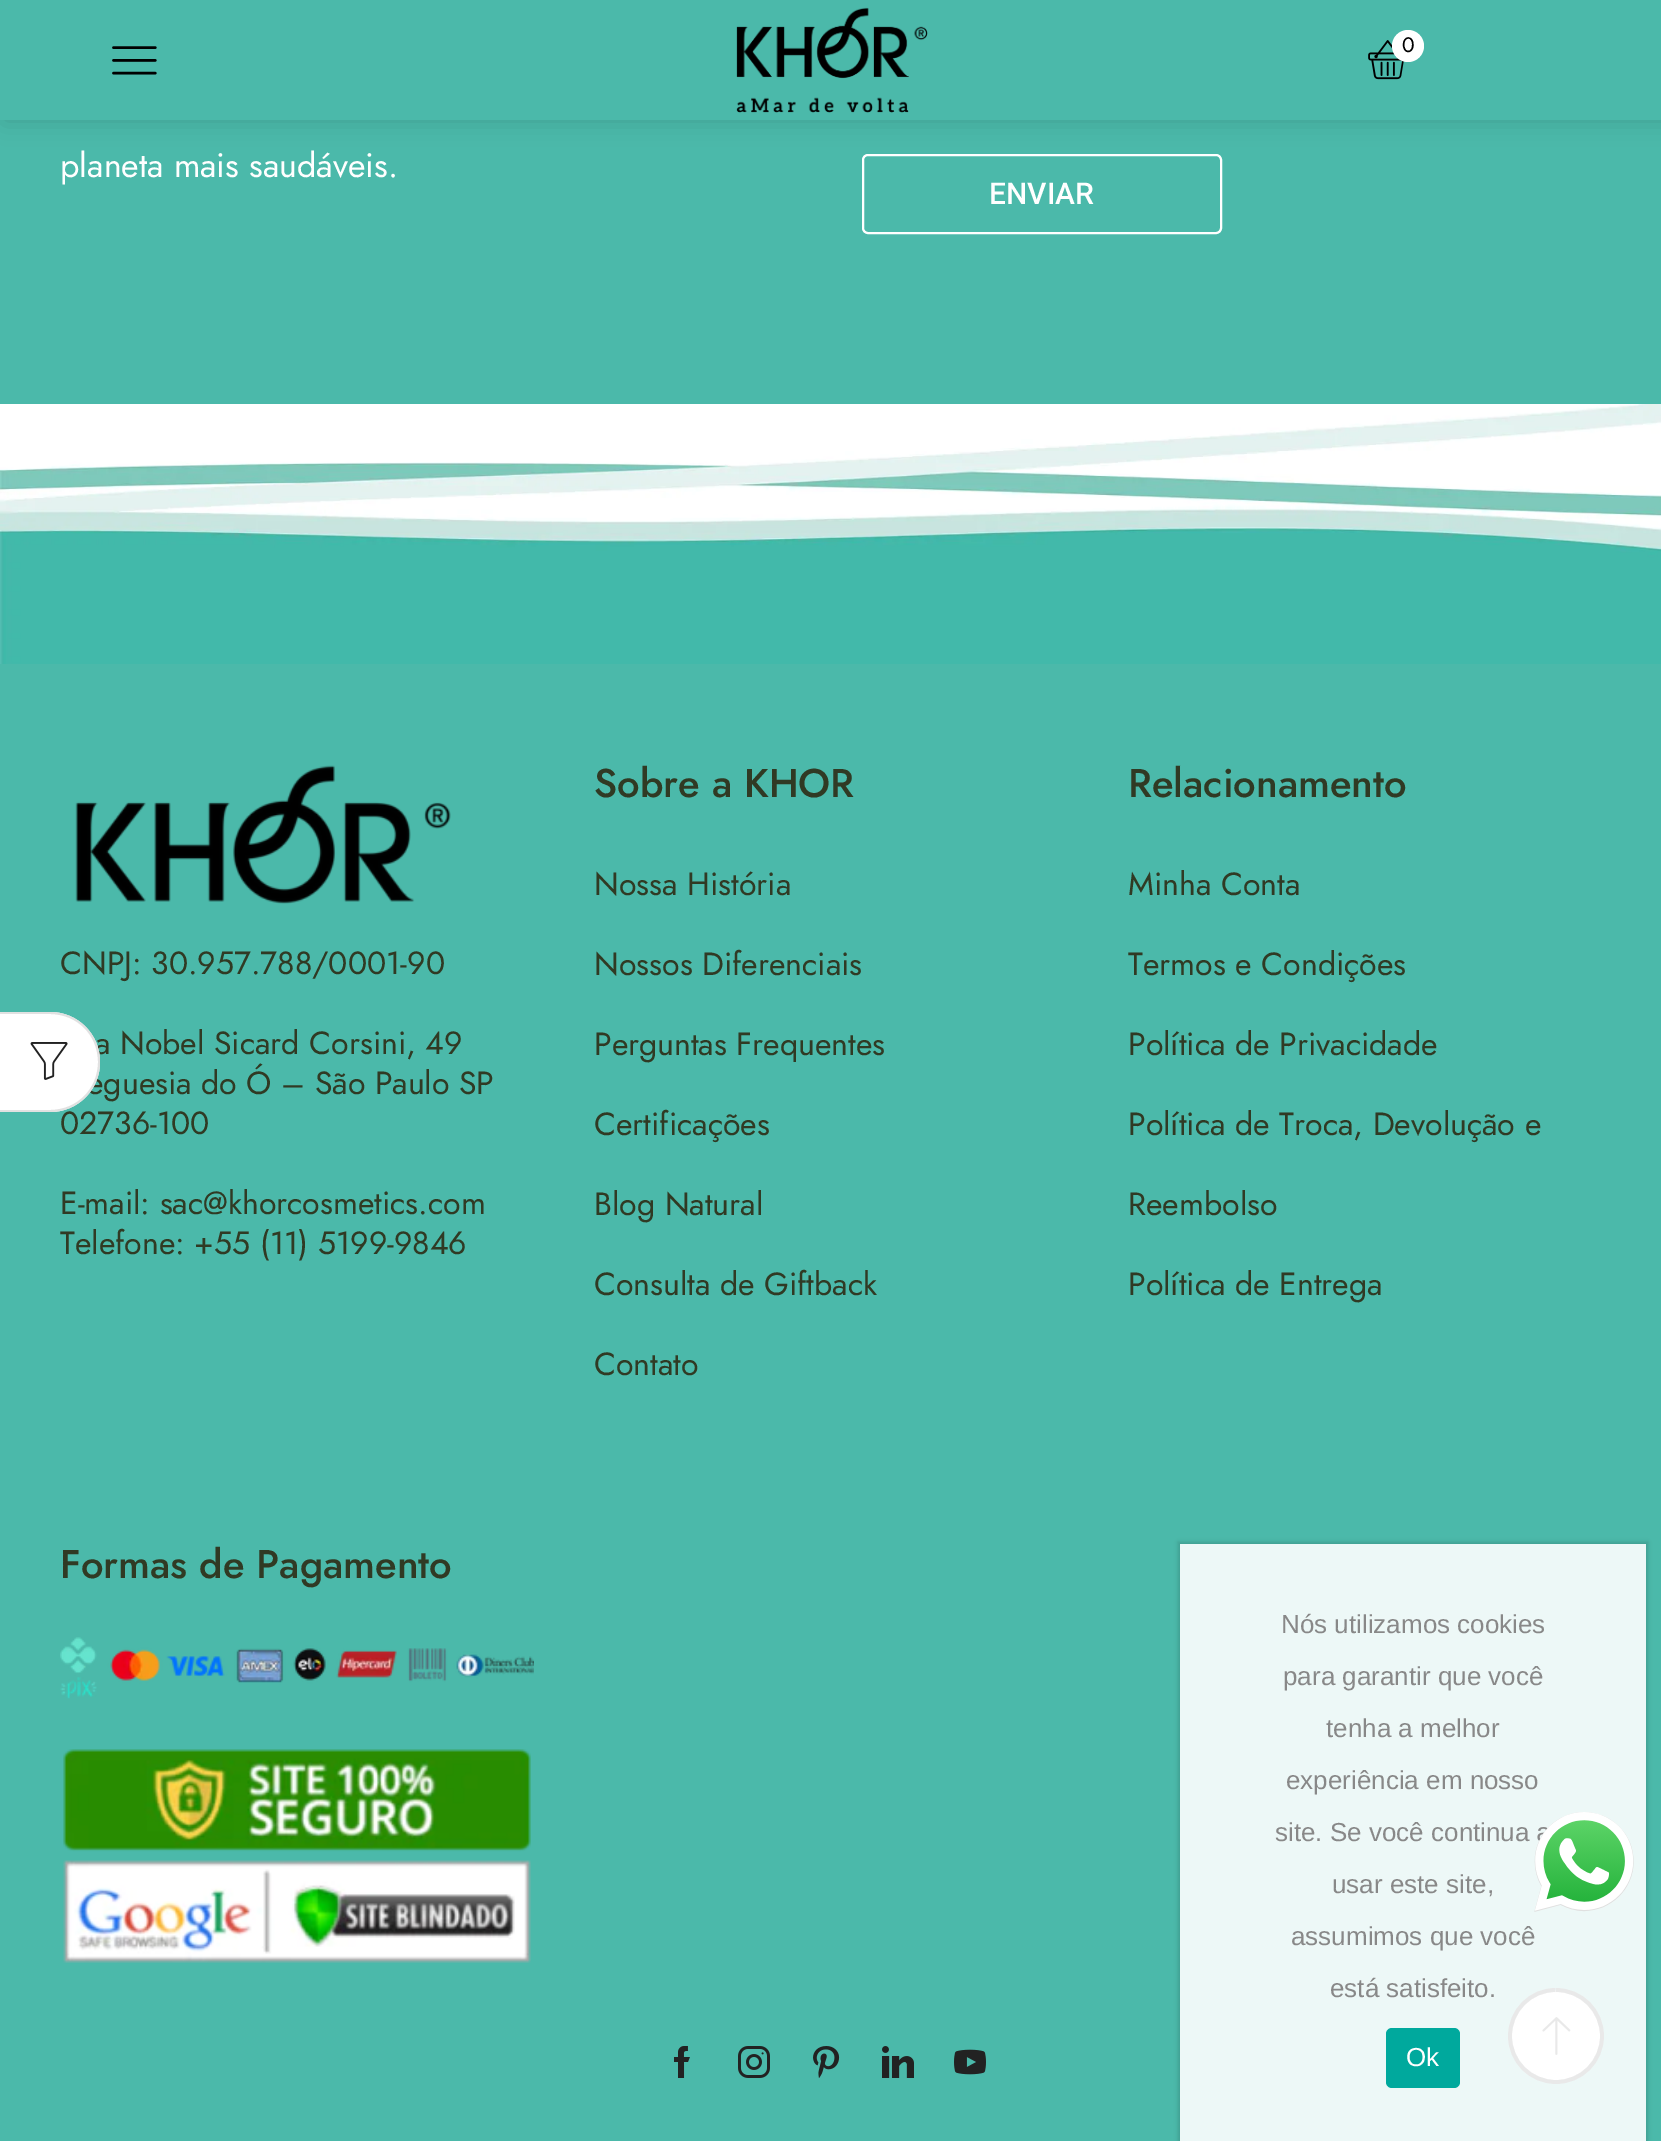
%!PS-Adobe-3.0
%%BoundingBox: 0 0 1661 2141
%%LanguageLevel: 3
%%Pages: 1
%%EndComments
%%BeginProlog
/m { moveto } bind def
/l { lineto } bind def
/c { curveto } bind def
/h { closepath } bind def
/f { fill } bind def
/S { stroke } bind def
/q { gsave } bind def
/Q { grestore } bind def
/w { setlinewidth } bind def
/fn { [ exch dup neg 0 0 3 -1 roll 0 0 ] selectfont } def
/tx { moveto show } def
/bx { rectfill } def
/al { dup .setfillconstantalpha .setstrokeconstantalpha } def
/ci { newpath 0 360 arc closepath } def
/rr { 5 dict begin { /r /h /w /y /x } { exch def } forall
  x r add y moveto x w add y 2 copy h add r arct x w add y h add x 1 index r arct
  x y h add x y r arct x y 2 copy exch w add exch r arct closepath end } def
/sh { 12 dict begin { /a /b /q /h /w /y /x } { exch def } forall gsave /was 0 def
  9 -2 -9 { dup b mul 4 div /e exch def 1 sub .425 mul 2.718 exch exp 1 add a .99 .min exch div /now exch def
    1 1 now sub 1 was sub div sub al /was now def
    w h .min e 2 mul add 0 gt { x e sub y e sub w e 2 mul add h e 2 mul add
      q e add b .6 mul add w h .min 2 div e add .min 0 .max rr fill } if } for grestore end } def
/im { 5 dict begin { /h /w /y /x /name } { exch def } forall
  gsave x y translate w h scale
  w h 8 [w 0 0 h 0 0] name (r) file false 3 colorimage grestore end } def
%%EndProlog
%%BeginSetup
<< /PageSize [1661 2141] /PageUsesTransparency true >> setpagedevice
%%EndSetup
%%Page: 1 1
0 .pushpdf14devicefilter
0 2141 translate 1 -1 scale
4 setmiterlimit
0.294 0.725 0.667 setrgbcolor
0 0 1661 2141 bx
1 setgray
2 w
863 155 358 78 5 rr S
0 setgray
4 0 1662 120 0 12 0.15 sh
0.294 0.725 0.667 setrgbcolor
0 0 1661 120 bx
(image0.raw) 112 46 45 29 im
(image1.raw) 736 7 192 106 im
(image2.raw) 1368 40 36 40 im
1 setgray
1408 46 16 ci f
/Jost-Regular 21 fn
0 setgray
(0) 1402 52 tx
1 setgray
1556 2036 45 ci q f Q
0.882 setgray
S
0.133 setgray
3.8 w
1556 1990 m 1581.5 1990 1602 2010.5 1602 2036 c 1602 2061.5 1581.5 2082 1556 2082 c 1530.5 2082 1510 2061.5 1510 2036 c 1510 2010.5 1530.5 1990 1555.5 1990 c S
(image3.raw) 1542 2017 29 38 im
/Jost-Regular 32 fn
0.188 0.227 0.141 setrgbcolor
(a Nobel Sicard Corsini, 49) 95 1054 tx
(eguesia do Ó – São Paulo SP) 87 1094 tx
(02736-100) 60 1134 tx
1 setgray
0 1012 m 50 1012 l 77.5 1012 100 1034.5 100 1062 c 100 1089.5 77.5 1112 50 1112 c 0 1112 l h f
0.882 setgray
0 1012 m 50 1012 l 78 1012 100 1034 100 1062 c 100 1090 78 1112 50 1112 c 0 1112 l h 0 1014 m 50 1014 l 77 1014 98 1035 98 1062 c 98 1089 77 1110 50 1110 c 0 1110 l h eofill
(image4.raw) 30 1042 38 38 im
/Jost-Regular 34 fn
1 setgray
(planeta mais saudáveis.) 60 177 tx
/Roboto-Medium 30 fn
(ENVIAR) 989 204 tx
(image5.raw) 0 404 1661 260 im
(image6.raw) 75 765 376 139 im
/Jost-Regular 32 fn
0.188 0.227 0.141 setrgbcolor
(CNPJ: 30.957.788/0001-90) 60 974 tx
(E-mail: sac@khorcosmetics.com) 60 1214 tx
(Telefone: +55 \(11\) 5199-9846) 60 1254 tx
/Jost-Medium 40 fn
(Sobre a KHOR) 594 797 tx
/Jost-Regular 32 fn
(Nossa História) 594 895 tx
(Nossos Diferenciais) 594 975 tx
(Perguntas Frequentes) 594 1055 tx
(Certificações) 594 1135 tx
(Blog Natural) 594 1215 tx
(Consulta de Giftback) 594 1295 tx
(Contato) 594 1375 tx
/Jost-Medium 40 fn
(Relacionamento) 1128 797 tx
/Jost-Regular 32 fn
(Minha Conta) 1128 895 tx
(Termos e Condições) 1128 975 tx
(Política de Privacidade) 1128 1055 tx
(Política de Troca, Devolução e) 1128 1135 tx
(Reembolso) 1128 1215 tx
(Política de Entrega) 1128 1295 tx
/Jost-Medium 40 fn
(Formas de Pagamento) 60 1578 tx
(image7.raw) 60 1637 474 62 im
(image8.raw) 63 1749 468 214 im
(image9.raw) 674 2046 16 32 im
(image10.raw) 738 2046 32 32 im
(image11.raw) 813 2046 27 32 im
(image12.raw) 882 2046 32 32 im
(image13.raw) 954 2049 32 26 im
q
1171 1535 m 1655 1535 l 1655 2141 l 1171 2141 l h 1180 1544 m 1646 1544 l 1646 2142 l 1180 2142 l h eoclip newpath
0 setgray
1178 1542 470 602 0 2 0.15 sh
Q
0.9 al
1 setgray
1180 1544 466 597 bx
/LiberationSans-Regular 26 fn
1 al
0.533 setgray
(Nós utilizamos cookies) 1281 1633 tx
(para garantir que você) 1283 1685 tx
(tenha a melhor) 1326 1737 tx
(experiência em nosso) 1286 1789 tx
(site. Se você continua) 1275 1841 tx
(usar este site,) 1332 1893 tx
(assumimos que você) 1291 1945 tx
(está satisfeito.) 1330 1997 tx
0 0.663 0.616 setrgbcolor
1386 2028 74 60 6 rr f
1 setgray
(Ok) 1406 2066 tx
(image14.raw) 1534 1812 100 100 im
.poppdf14devicefilter showpage
%%EOF
